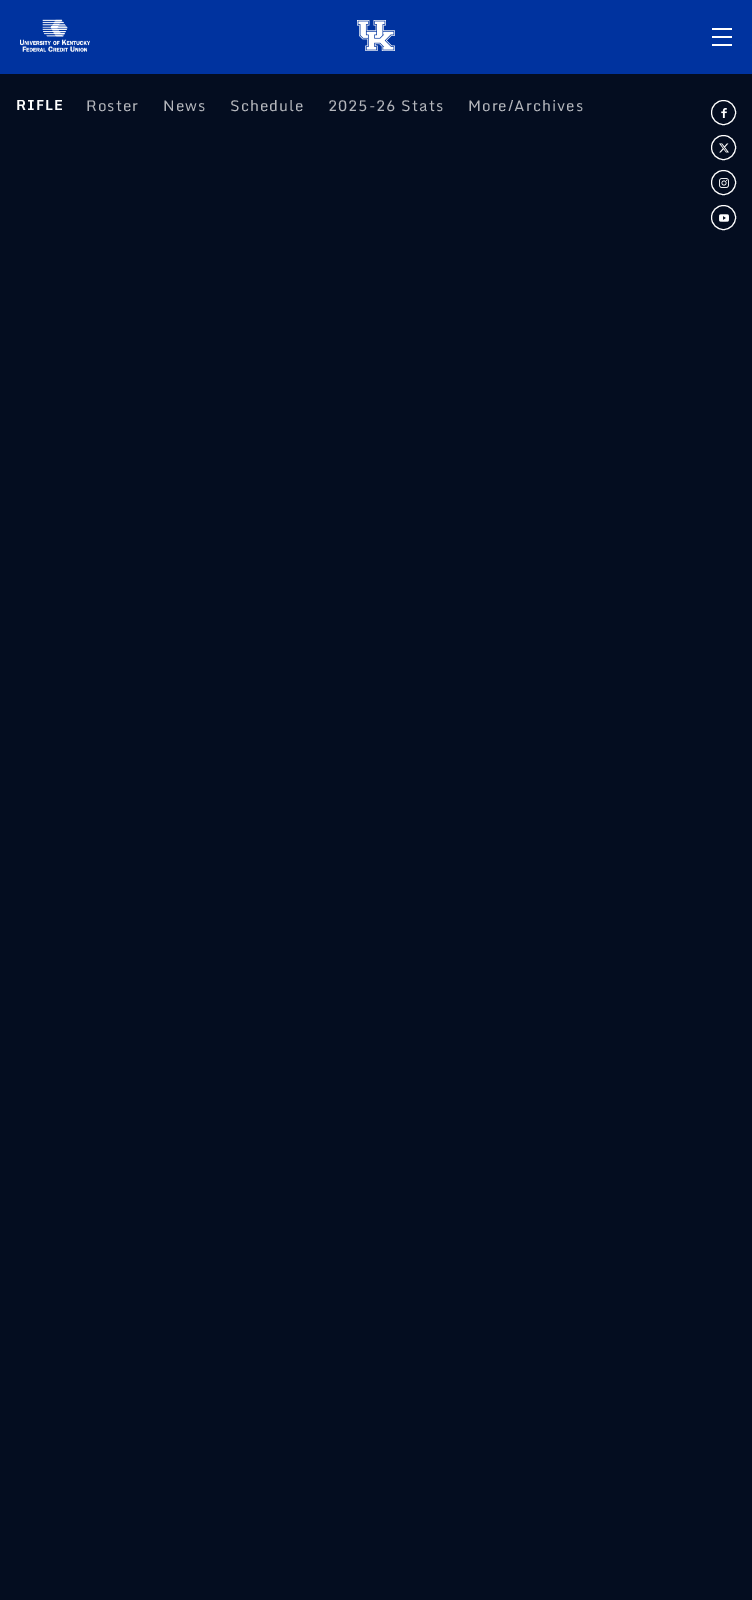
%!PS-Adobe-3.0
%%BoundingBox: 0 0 752 1600
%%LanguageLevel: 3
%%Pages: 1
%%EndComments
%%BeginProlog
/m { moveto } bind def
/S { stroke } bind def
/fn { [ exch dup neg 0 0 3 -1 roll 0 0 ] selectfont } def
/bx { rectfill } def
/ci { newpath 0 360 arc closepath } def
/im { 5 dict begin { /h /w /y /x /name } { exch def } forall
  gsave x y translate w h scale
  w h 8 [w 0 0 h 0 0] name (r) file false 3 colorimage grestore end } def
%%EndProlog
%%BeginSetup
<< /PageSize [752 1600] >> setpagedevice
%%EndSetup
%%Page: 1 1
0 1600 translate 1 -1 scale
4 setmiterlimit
0.016 0.051 0.125 setrgbcolor
0 0 752 1600 bx
0 0.2 0.624 setrgbcolor
0 0 752 74 bx
(image0.raw) 20 19 70 33 im
(image1.raw) 357 20 38 31 im
1 setgray
712 36 20 2 bx
712 28 20 2 bx
712 44 20 2 bx
/Monda-Bold 14 fn
16 110 m 1 0 (RIFLE) ashow
/Monda-Regular 15 fn
0.706 0.714 0.737 setrgbcolor
86 111 m 1 0 (Roster) ashow
163 111 m 1 0 (News) ashow
230 111 m 1 0 (Schedule) ashow
328 111 m 1 0 (2025-26 Stats) ashow
468 111 m 1 0 (More/Archives) ashow
1 setgray
723.5 112.5 12 ci S
(image2.raw) 721 108 6 10 im
723.5 147.5 12 ci S
(image3.raw) 719 143 10 10 im
723.5 182.5 12 ci S
(image4.raw) 719 178 10 10 im
723.5 217.5 12 ci S
(image5.raw) 719 214 10 8 im
showpage
%%EOF
